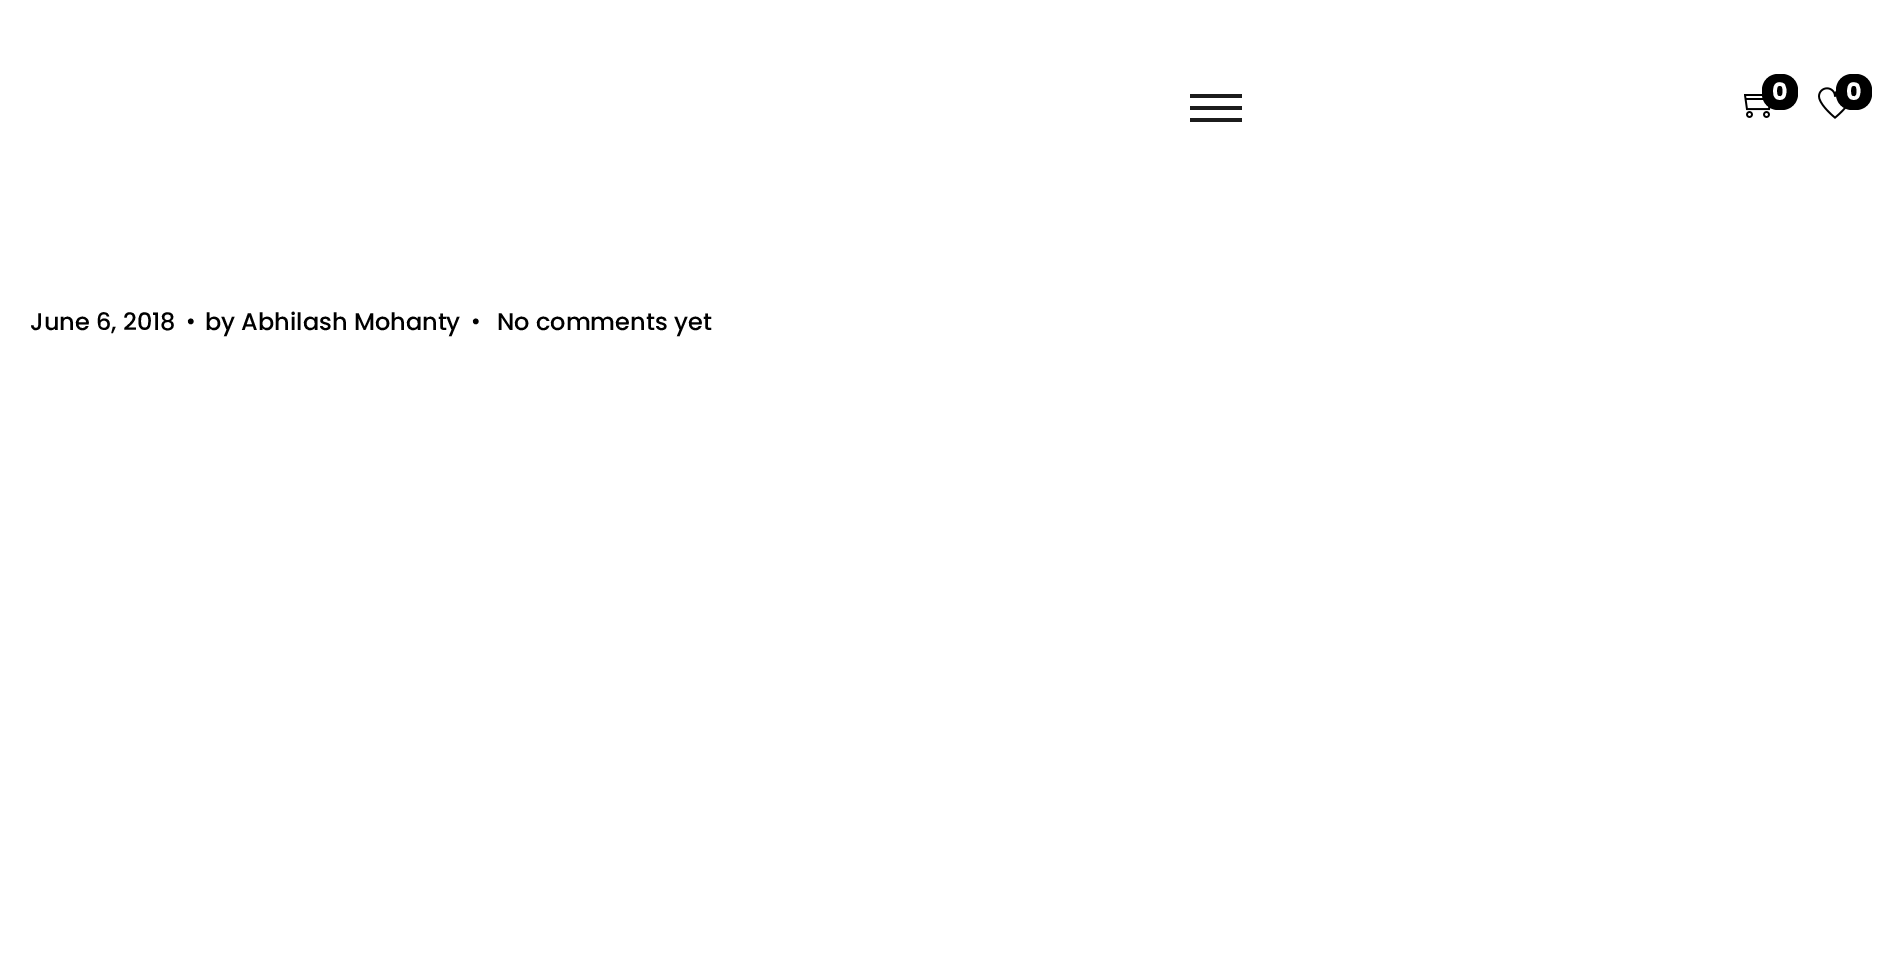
%!PS-Adobe-3.0
%%BoundingBox: 0 0 1892 959
%%LanguageLevel: 3
%%Pages: 1
%%EndComments
%%BeginProlog
/f { fill } bind def
/fn { [ exch dup neg 0 0 3 -1 roll 0 0 ] selectfont } def
/tx { moveto show } def
/bx { rectfill } def
/rr { 5 dict begin { /r /h /w /y /x } { exch def } forall
  x r add y moveto x w add y 2 copy h add r arct x w add y h add x 1 index r arct
  x y h add x y r arct x y 2 copy exch w add exch r arct closepath end } def
/im { 5 dict begin { /h /w /y /x /name } { exch def } forall
  gsave x y translate w h scale
  w h 8 [w 0 0 h 0 0] name (r) file false 3 colorimage grestore end } def
%%EndProlog
%%BeginSetup
<< /PageSize [1892 959] >> setpagedevice
%%EndSetup
%%Page: 1 1
0 959 translate 1 -1 scale
4 setmiterlimit
1 setgray
0 0 1892 959 bx
(image0.raw) 1744 94 27 24 im
0 setgray
1762 74 36 36 16 rr f
/Poppins-Bold 24 fn
1 setgray
(0) 1772 100 tx
(image1.raw) 1818 87 29 32 im
0 setgray
1836 74 36 36 16 rr f
1 setgray
(0) 1846 100 tx
0.11 setgray
1190 106 52 4 bx
1190 94 52 4 bx
1190 118 52 4 bx
/Poppins-Medium 24 fn
0 setgray
(June 6, 2018) 30 330 tx
/Poppins-Medium 40 fn
(.) 186 324 tx
/Poppins-Medium 24 fn
(by Abhilash Mohanty) 205 330 tx
/Poppins-Medium 40 fn
(.) 471 324 tx
/Poppins-Medium 24 fn
(No comments yet) 497 330 tx
showpage
%%EOF
